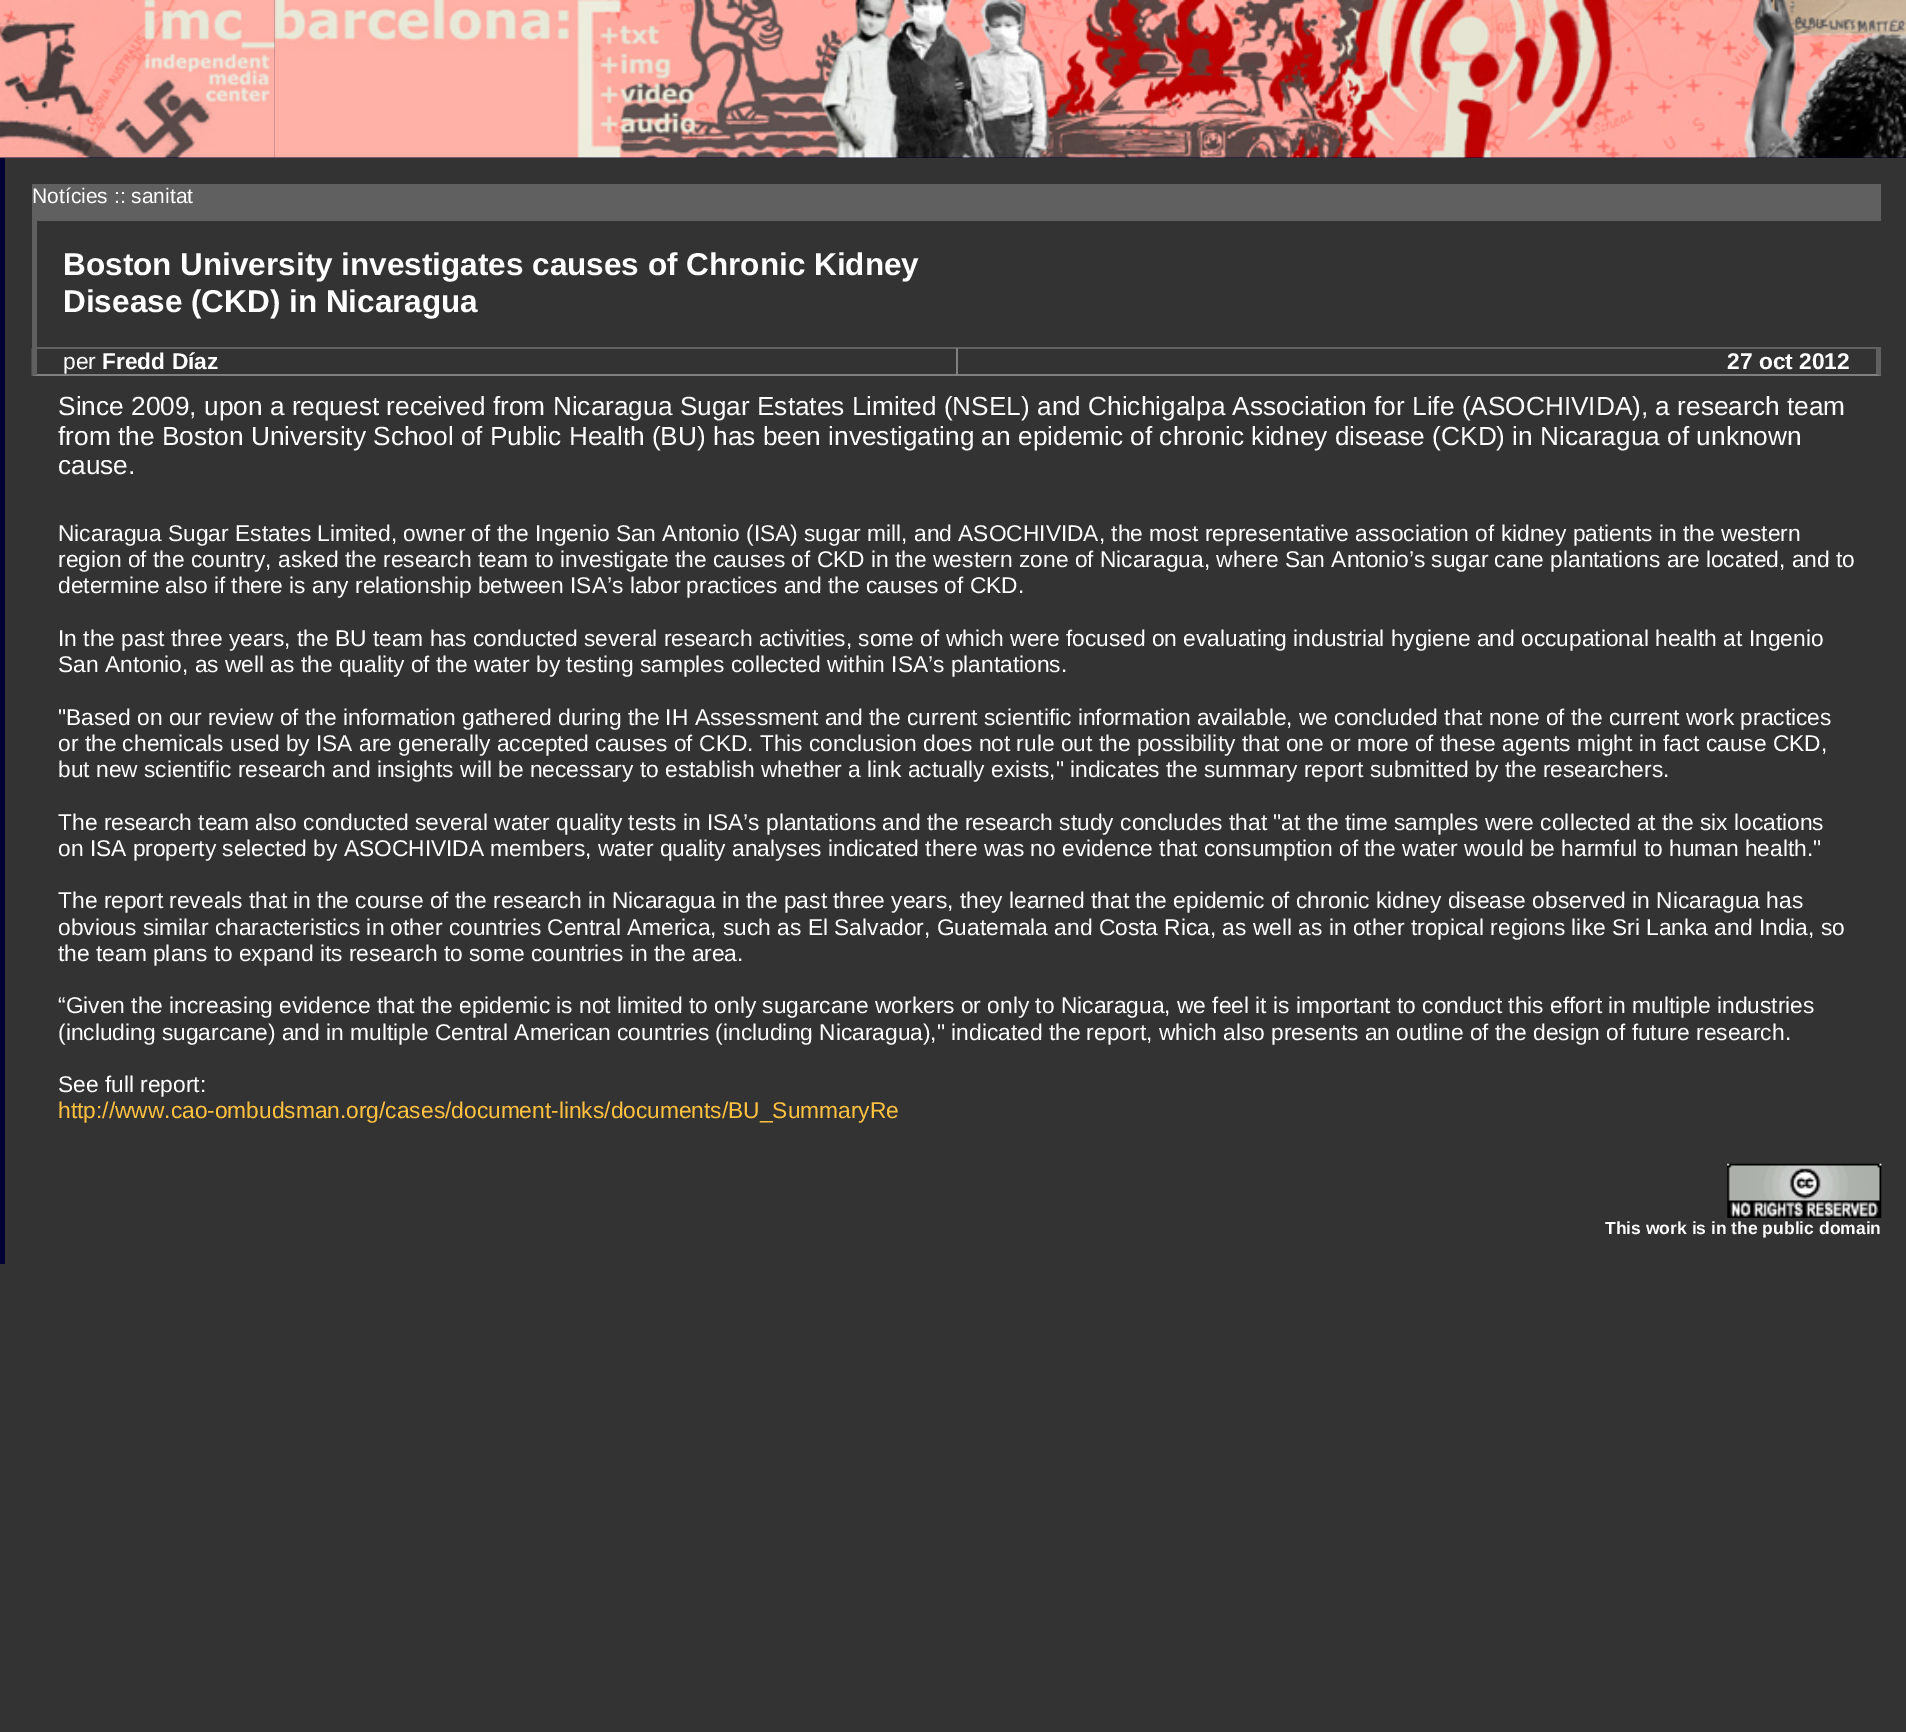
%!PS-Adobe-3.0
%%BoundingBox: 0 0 1906 1732
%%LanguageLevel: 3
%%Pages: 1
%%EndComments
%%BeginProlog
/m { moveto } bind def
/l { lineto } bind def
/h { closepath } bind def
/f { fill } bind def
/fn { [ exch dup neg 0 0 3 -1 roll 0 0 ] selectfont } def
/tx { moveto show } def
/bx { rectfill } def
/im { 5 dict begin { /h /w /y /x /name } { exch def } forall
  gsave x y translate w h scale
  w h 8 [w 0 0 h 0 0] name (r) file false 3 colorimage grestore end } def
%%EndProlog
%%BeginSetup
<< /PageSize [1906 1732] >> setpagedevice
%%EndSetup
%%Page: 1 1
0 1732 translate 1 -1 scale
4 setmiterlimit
0.2 setgray
0 0 1906 1732 bx
0 0 0.2 setrgbcolor
0 0 275 158 bx
(image0.raw) 0 0 275 158 im
275 157 1631 1 bx
(image1.raw) 274 0 1632 158 im
0 158 5 1106 bx
0.376 setgray
32 184 1849 24 bx
/LiberationSans-Regular 21 fn
1 setgray
(Notícies :: sanitat) 32 203 tx
0.376 setgray
37 208 1844 13 bx
32 347 1849 2 bx
32 208 5 140 bx
/LiberationSans-Bold 31.5 fn
1 setgray
(Boston University investigates causes of Chronic Kidney) 63 275 tx
(Disease \(CKD\) in Nicaragua) 63 312 tx
0.502 setgray
956 348 2 28 bx
957 376 m 32 376 l 37 374 l 956 374 l h f
0.376 setgray
31.5 376 m 31.5 348 l 37 348 l 37 374.5 l h f
/LiberationSans-Regular 22.75 fn
1 setgray
(per) 63 369 tx
/LiberationSans-Bold 22.75 fn
(Fredd Díaz) 102 369 tx
0.376 setgray
1881 348 m 1881 376 l 1876 374.5 l 1876 348 l h f
0.502 setgray
1881 376 m 957 376 l 957 374 l 1876 374 l h f
1 setgray
(27 oct 2012) 1727 369 tx
/LiberationSans-Regular 26.25 fn
(Since 2009, upon a request received from Nicaragua Sugar Estates Limited \(NSEL\) and Chichigalpa Association for Life \(ASOCHIVIDA\), a research team) 58 415 tx
(from the Boston University School of Public Health \(BU\) has been investigating an epidemic of chronic kidney disease \(CKD\) in Nicaragua of unknown) 58 445 tx
(cause.) 58 474 tx
/LiberationSans-Regular 22.75 fn
(Nicaragua Sugar Estates Limited, owner of the Ingenio San Antonio \(ISA\) sugar mill, and ASOCHIVIDA, the most representative association of kidney patients in the western) 58 541 tx
(region of the country, asked the research team to investigate the causes of CKD in the western zone of Nicaragua, where San Antonio’s sugar cane plantations are located, and to) 58 567 tx
(determine also if there is any relationship between ISA’s labor practices and the causes of CKD.) 58 593 tx
(In the past three years, the BU team has conducted several research activities, some of which were focused on evaluating industrial hygiene and occupational health at Ingenio) 58 646 tx
(San Antonio, as well as the quality of the water by testing samples collected within ISA’s plantations.) 58 672 tx
("Based on our review of the information gathered during the IH Assessment and the current scientific information available, we concluded that none of the current work practices) 58 725 tx
(or the chemicals used by ISA are generally accepted causes of CKD. This conclusion does not rule out the possibility that one or more of these agents might in fact cause CKD,) 58 751 tx
(but new scientific research and insights will be necessary to establish whether a link actually exists," indicates the summary report submitted by the researchers.) 58 777 tx
(The research team also conducted several water quality tests in ISA’s plantations and the research study concludes that "at the time samples were collected at the six locations) 58 830 tx
(on ISA property selected by ASOCHIVIDA members, water quality analyses indicated there was no evidence that consumption of the water would be harmful to human health.") 58 856 tx
(The report reveals that in the course of the research in Nicaragua in the past three years, they learned that the epidemic of chronic kidney disease observed in Nicaragua has) 58 908 tx
(obvious similar characteristics in other countries Central America, such as El Salvador, Guatemala and Costa Rica, as well as in other tropical regions like Sri Lanka and India, so) 58 935 tx
(the team plans to expand its research to some countries in the area.) 58 961 tx
(“Given the increasing evidence that the epidemic is not limited to only sugarcane workers or only to Nicaragua, we feel it is important to conduct this effort in multiple industries) 58 1013 tx
(\(including sugarcane\) and in multiple Central American countries \(including Nicaragua\)," indicated the report, which also presents an outline of the design of future research.) 58 1040 tx
(See full report:) 58 1092 tx
1 0.757 0.251 setrgbcolor
(http://www.cao-ombudsman.org/cases/document-links/documents/BU_SummaryRe) 58 1118 tx
(image2.raw) 1727 1163 155 55 im
/LiberationSans-Bold 17.5 fn
1 setgray
(This work is in the public domain) 1605 1234 tx
showpage
%%EOF
